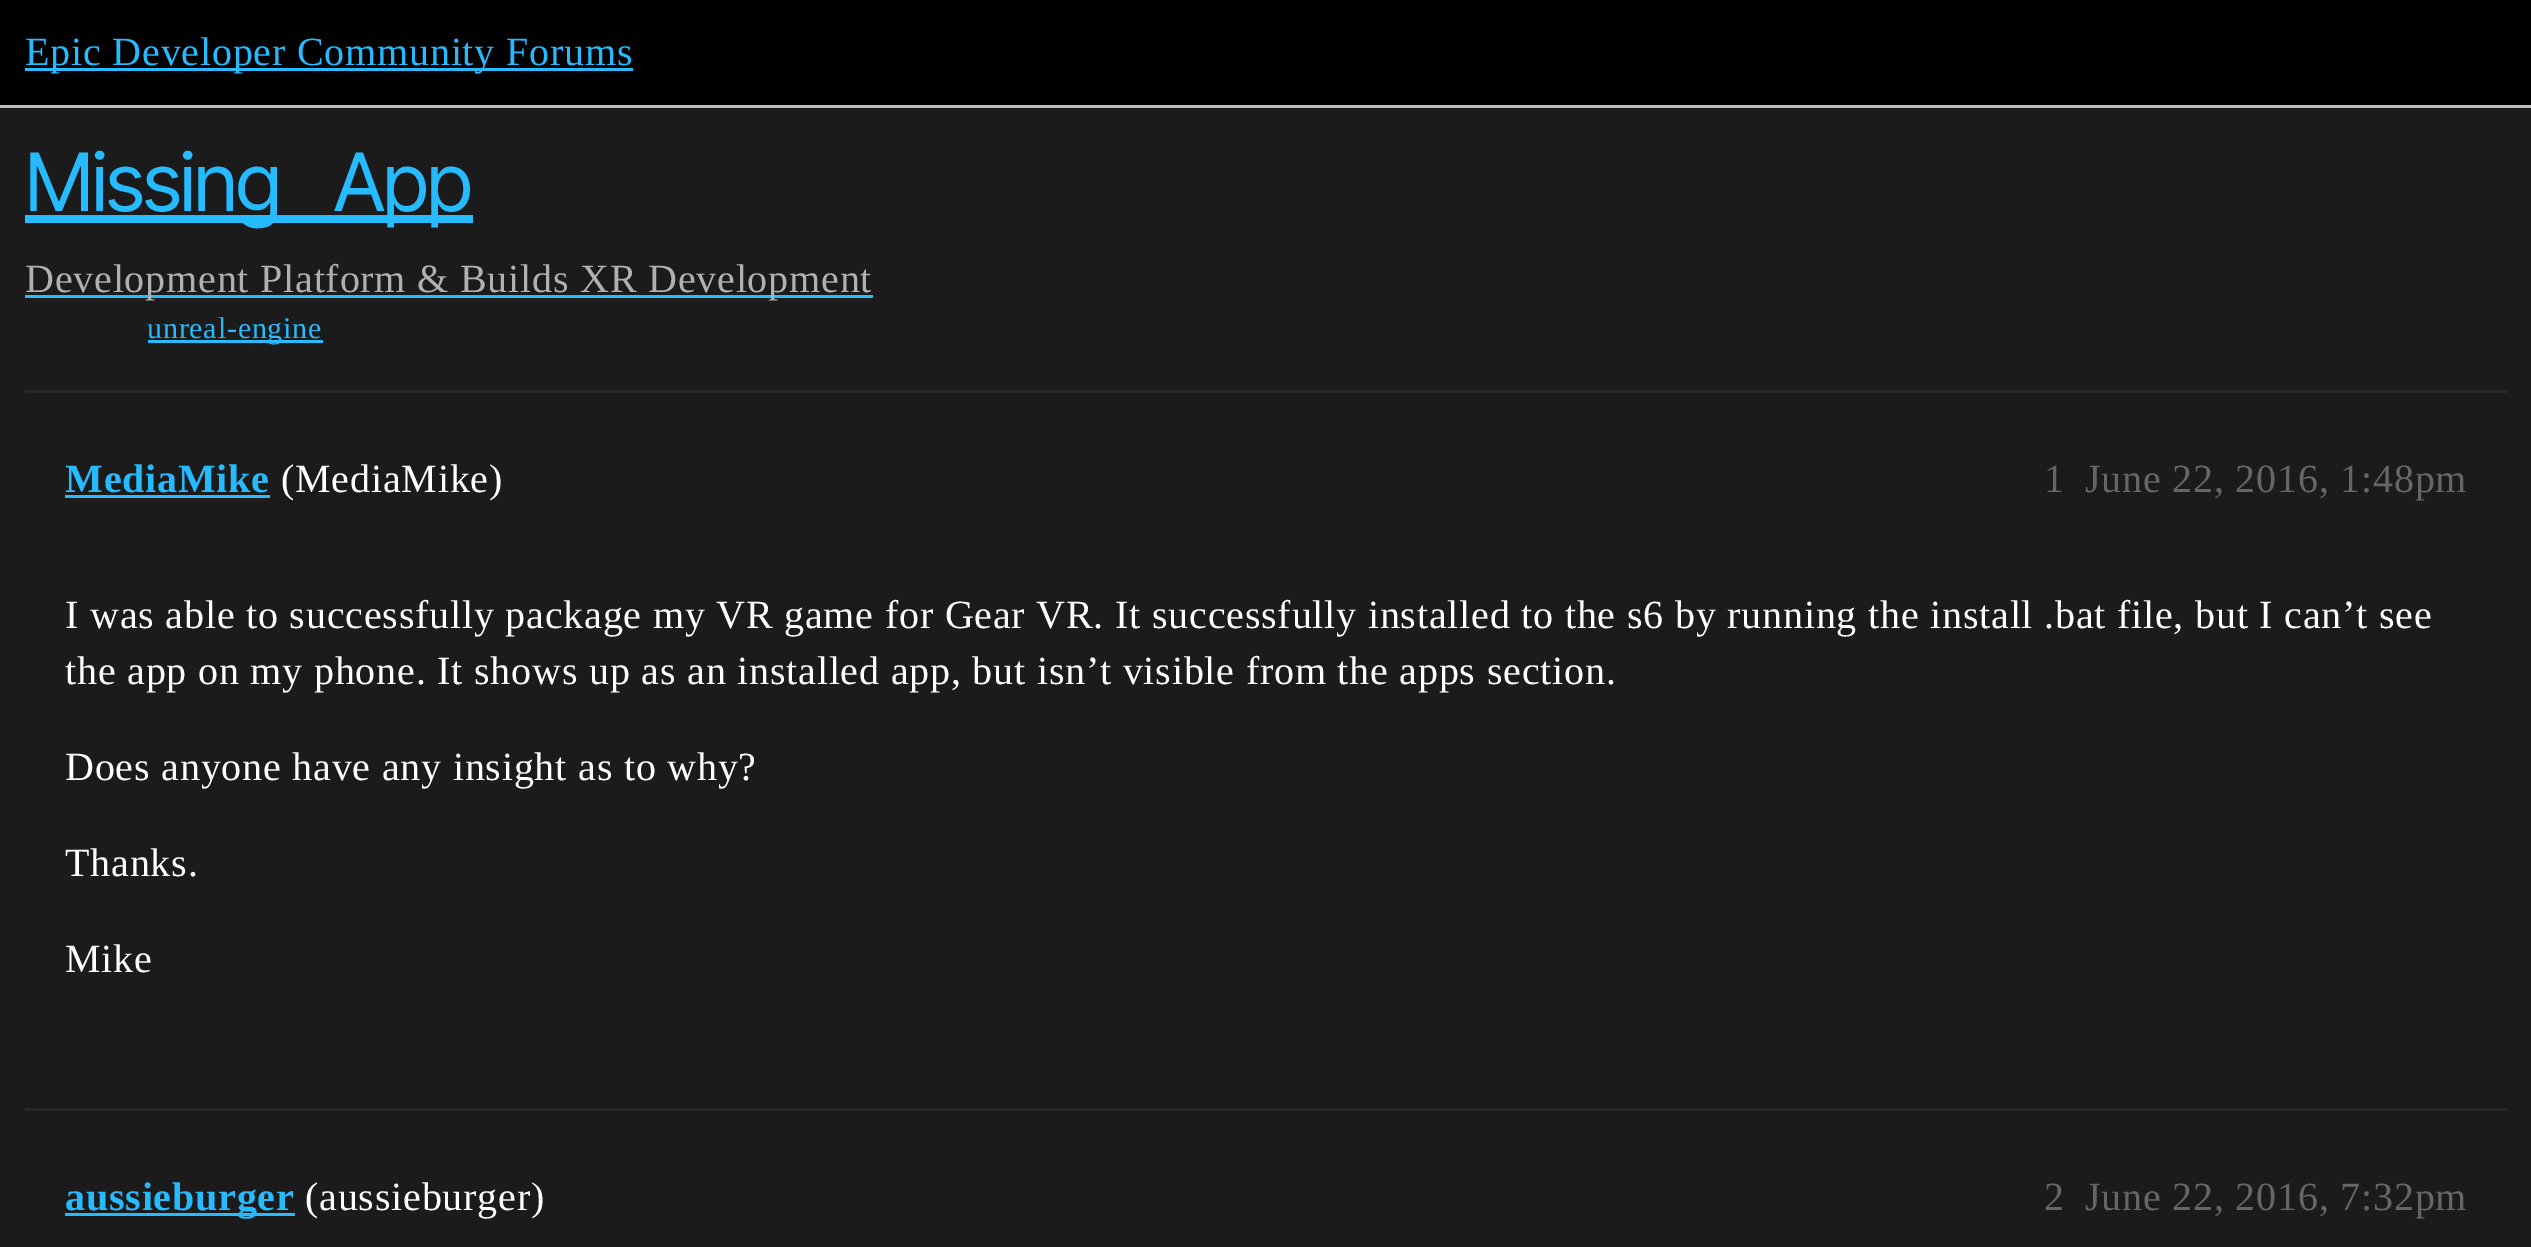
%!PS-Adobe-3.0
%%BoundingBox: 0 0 2531 1247
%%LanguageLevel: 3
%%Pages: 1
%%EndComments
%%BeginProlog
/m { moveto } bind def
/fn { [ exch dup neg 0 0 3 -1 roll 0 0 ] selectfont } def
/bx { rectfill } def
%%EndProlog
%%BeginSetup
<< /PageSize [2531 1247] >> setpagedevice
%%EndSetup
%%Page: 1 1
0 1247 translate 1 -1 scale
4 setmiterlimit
0.106 setgray
0 0 2531 1247 bx
0 setgray
0 0 2531 105 bx
0.741 setgray
0 105 2531 3 bx
0.149 0.733 1 setrgbcolor
25 68 608 3 bx
/LiberationSerif-Regular 40 fn
25 65 m 0.8 0 (Epic Developer Community Forums) ashow
25 215 448 8 bx
/InterTight-Regular 80.5 fn
25 211 m 36 0 32 -1.25 0 (Missing App) awidthshow
25 295 848 3 bx
/LiberationSerif-Regular 40 fn
0.686 0.69 0.69 setrgbcolor
25 292 m 0.8 0 (Development) ashow
260 292 m 0.8 0 (Platform & Builds) ashow
580 292 m 0.8 0 (XR Development) ashow
0.149 0.733 1 setrgbcolor
148 340 175 3 bx
/LiberationSerif-Regular 30 fn
147 338 m 0.8 0 (unreal-engine) ashow
0.157 0.157 0.173 setrgbcolor
25 390 2483 3 bx
/LiberationSerif-Bold 40 fn
0.149 0.733 1 setrgbcolor
65 492 m 0.8 0 (MediaMike) ashow
65 495 205 3 bx
/LiberationSerif-Regular 40 fn
1 setgray
281 492 m 0.8 0 (\(MediaMike\)) ashow
0.4 setgray
2044 492 m 0.8 0 (1) ashow
2085 492 m 0.8 0 (June 22, 2016, 1:48pm) ashow
1 setgray
65 628 m 0.8 0 (I was able to successfully package my VR game for Gear VR. It successfully installed to the s6 by running the install .bat file, but I can’t see) ashow
65 684 m 0.8 0 (the app on my phone. It shows up as an installed app, but isn’t visible from the apps section.) ashow
65 780 m 0.8 0 (Does anyone have any insight as to why?) ashow
65 876 m 0.8 0 (Thanks.) ashow
65 972 m 0.8 0 (Mike) ashow
0.157 0.157 0.173 setrgbcolor
25 1108 2483 3 bx
0.149 0.733 1 setrgbcolor
65 1213 230 3 bx
/LiberationSerif-Bold 40 fn
65 1210 m 0.8 0 (aussieburger) ashow
/LiberationSerif-Regular 40 fn
1 setgray
305 1210 m 0.8 0 (\(aussieburger\)) ashow
0.4 setgray
2044 1210 m 0.8 0 (2) ashow
2085 1210 m 0.8 0 (June 22, 2016, 7:32pm) ashow
showpage
%%EOF
